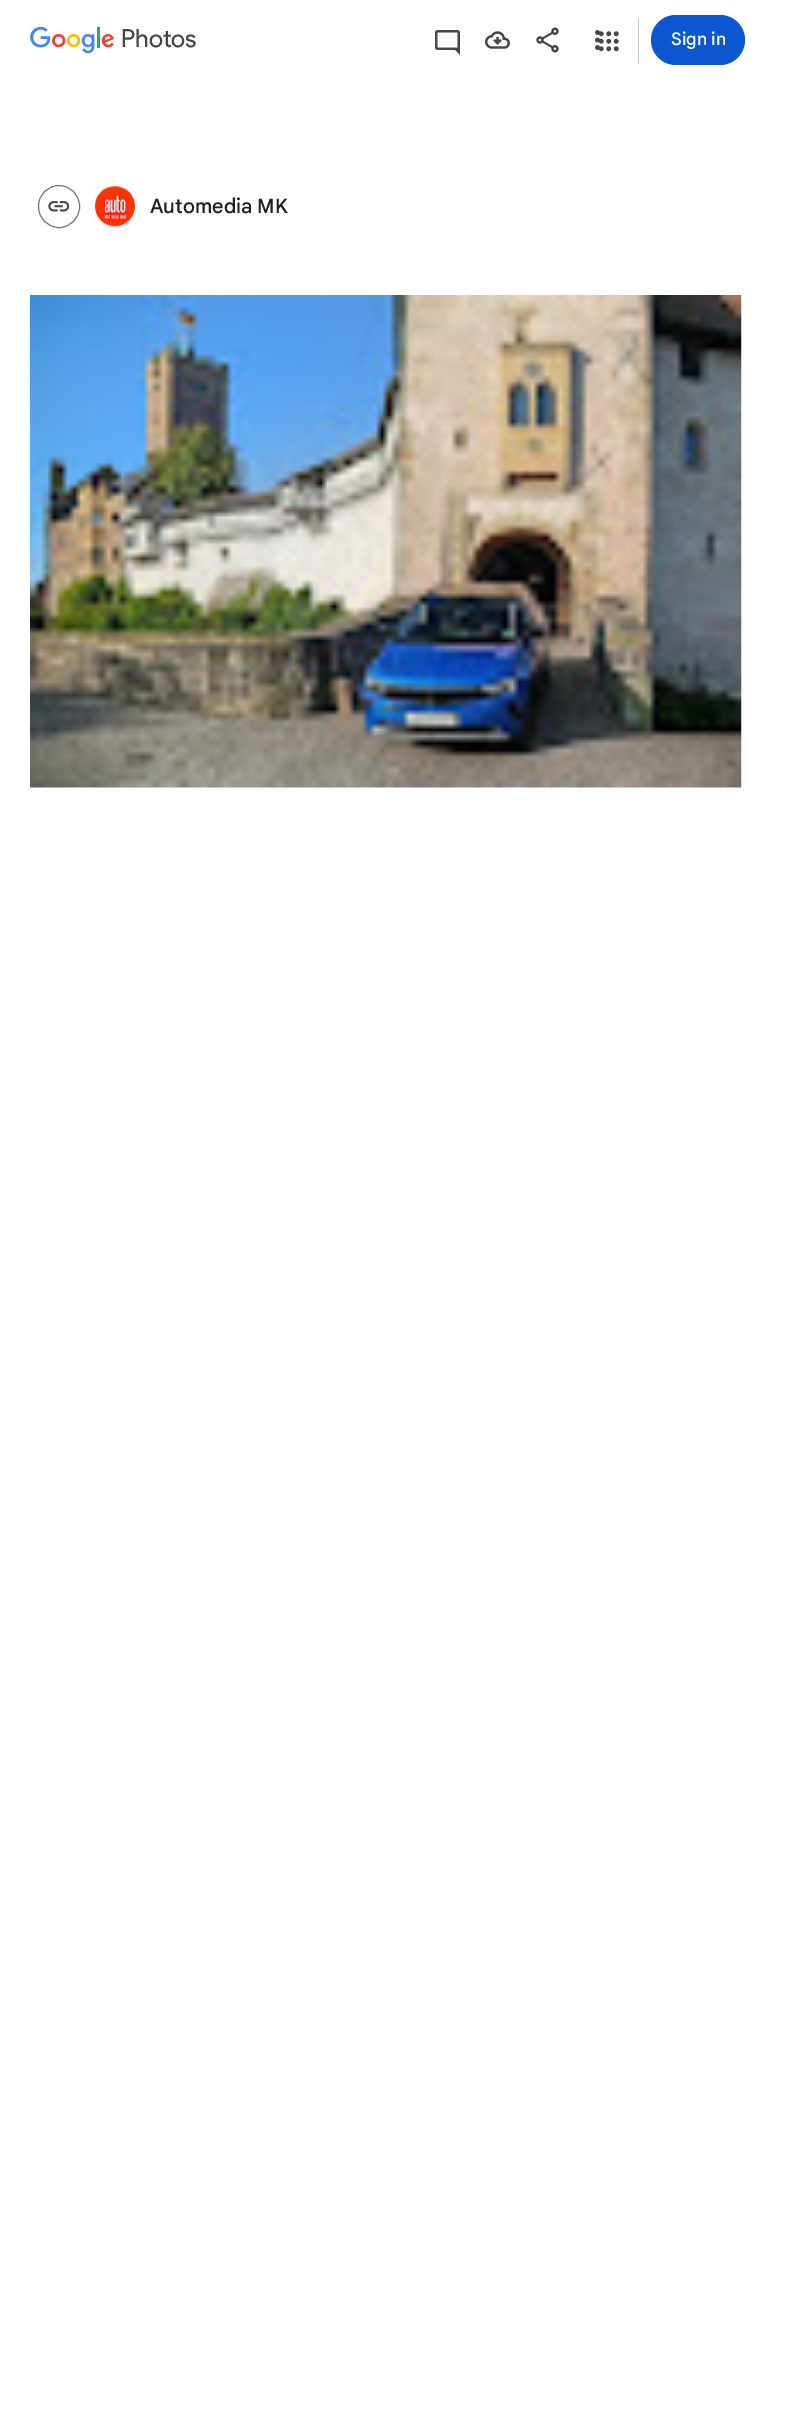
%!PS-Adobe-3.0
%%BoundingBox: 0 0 790 2410
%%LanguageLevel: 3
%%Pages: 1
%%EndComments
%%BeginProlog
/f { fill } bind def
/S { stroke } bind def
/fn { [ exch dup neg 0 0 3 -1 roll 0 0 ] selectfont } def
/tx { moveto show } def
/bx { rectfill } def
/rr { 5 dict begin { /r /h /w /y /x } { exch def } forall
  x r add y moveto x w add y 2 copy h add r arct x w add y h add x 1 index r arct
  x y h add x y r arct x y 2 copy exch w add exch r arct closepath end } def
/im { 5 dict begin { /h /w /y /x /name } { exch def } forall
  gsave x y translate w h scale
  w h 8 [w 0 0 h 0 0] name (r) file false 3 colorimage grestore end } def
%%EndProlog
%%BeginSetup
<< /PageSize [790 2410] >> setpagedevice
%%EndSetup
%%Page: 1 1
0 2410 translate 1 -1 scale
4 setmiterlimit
1 setgray
0 0 790 2410 bx
(image0.raw) 30 26 84 28 im
/ProductSans-Regular 25 fn
0.267 0.278 0.275 setrgbcolor
(Photos) 121 47 tx
(image1.raw) 435 30 25 25 im
(image2.raw) 485 31 25 18 im
(image3.raw) 536 27 23 26 im
(image4.raw) 595 30 5 20 im
0.769 0.78 0.773 setrgbcolor
638 18 1 45 bx
0.455 0.467 0.459 setrgbcolor
38.5 185.5 41 42 20.5 rr S
(image5.raw) 48 201 22 11 im
(image6.raw) 95 186 40 41 im
/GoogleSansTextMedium-Medium 20 fn
0.122 setgray
(Automedia MK) 150 213 tx
(image7.raw) 30 295 712 493 im
(image8.raw) 598 31 21 21 im
0.043 0.341 0.816 setrgbcolor
651 15 94 50 25 rr f
/GoogleSansTextMedium-Medium 17.5 fn
1 setgray
(Sign in) 671 45 tx
showpage
%%EOF
